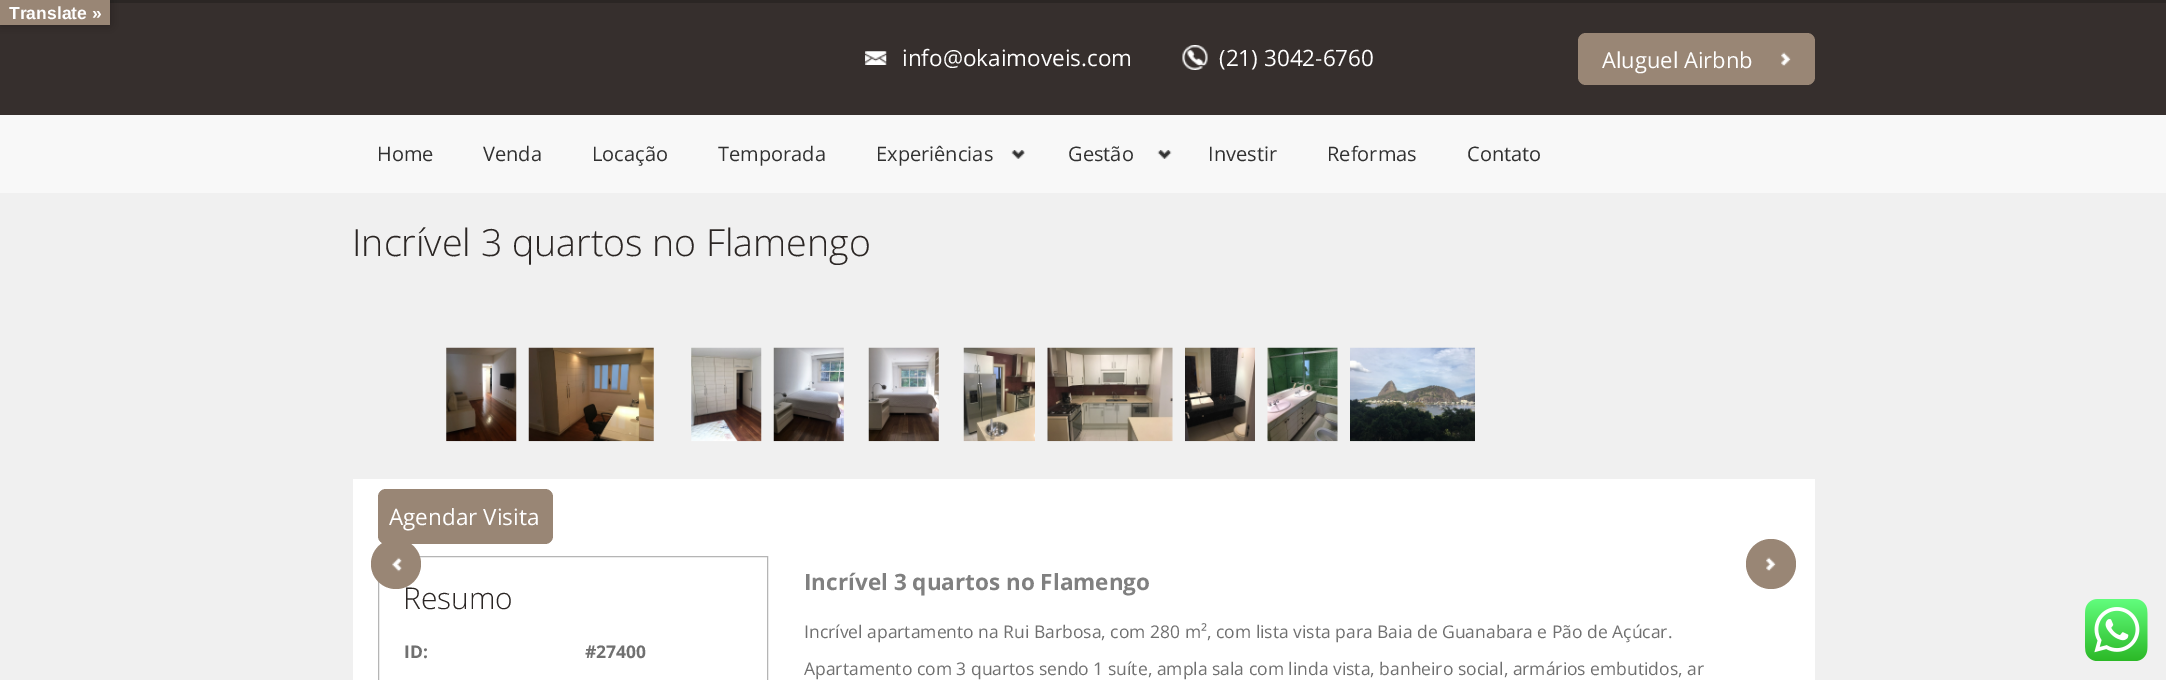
%!PS-Adobe-3.0
%%BoundingBox: 0 0 2166 680
%%LanguageLevel: 3
%%Pages: 1
%%EndComments
%%BeginProlog
/f { fill } bind def
/fn { [ exch dup neg 0 0 3 -1 roll 0 0 ] selectfont } def
/tx { moveto show } def
/bx { rectfill } def
/al { dup .setfillconstantalpha .setstrokeconstantalpha } def
/ci { newpath 0 360 arc closepath } def
/rr { 5 dict begin { /r /h /w /y /x } { exch def } forall
  x r add y moveto x w add y 2 copy h add r arct x w add y h add x 1 index r arct
  x y h add x y r arct x y 2 copy exch w add exch r arct closepath end } def
/sh { 12 dict begin { /a /b /q /h /w /y /x } { exch def } forall gsave /was 0 def
  9 -2 -9 { dup b mul 4 div /e exch def 1 sub .425 mul 2.718 exch exp 1 add a .99 .min exch div /now exch def
    1 1 now sub 1 was sub div sub al /was now def
    w h .min e 2 mul add 0 gt { x e sub y e sub w e 2 mul add h e 2 mul add
      q e add b .6 mul add w h .min 2 div e add .min 0 .max rr fill } if } for grestore end } def
/im { 5 dict begin { /h /w /y /x /name } { exch def } forall
  gsave x y translate w h scale
  w h 8 [w 0 0 h 0 0] name (r) file false 3 colorimage grestore end } def
%%EndProlog
%%BeginSetup
<< /PageSize [2166 680] /PageUsesTransparency true >> setpagedevice
%%EndSetup
%%Page: 1 1
0 .pushpdf14devicefilter
0 680 translate 1 -1 scale
4 setmiterlimit
0.941 setgray
0 0 2166 680 bx
0.169 0.149 0.141 setrgbcolor
110 0 2056 3 bx
0.212 0.184 0.176 setrgbcolor
0 3 2166 112 bx
0 setgray
0 0 110 25 0 5.5 0.3 sh
0.6 0.525 0.459 setrgbcolor
0 0 110 25 bx
/LiberationSans-Bold 17.5 fn
1 setgray
(Translate ») 9 19 tx
(image0.raw) 865 51 22 14 im
/OpenSans-Regular 22.5 fn
(info@okaimoveis.com) 902 66 tx
(image1.raw) 1182 45 26 25 im
(\(21\) 3042-6760) 1219 66 tx
0.6 0.525 0.459 setrgbcolor
1578 33 237 52 8 rr f
(image2.raw) 1781 52 10 14 im
/OpenSans-Regular 22 fn
1 setgray
(Aluguel Airbnb) 1602 68 tx
0.973 setgray
0 115 2166 78 bx
/OpenSans-Regular 20 fn
0.192 setgray
(Home) 377 161 tx
(Venda) 483 161 tx
(Locação) 592 161 tx
(Temporada) 718 161 tx
(image3.raw) 1011 150 14 9 im
(Experiências) 876 161 tx
(image4.raw) 1157 150 15 9 im
(Gestão) 1068 161 tx
(Investir) 1208 161 tx
(Reformas) 1327 161 tx
(Contato) 1467 161 tx
/OpenSans-Light 37.5 fn
0.169 0.149 0.141 setrgbcolor
(Incrível 3 quartos no Flamengo) 352 256 tx
(image5.raw) 446 347 71 95 im
(image6.raw) 528 347 126 95 im
(image7.raw) 691 347 71 95 im
(image8.raw) 773 347 71 95 im
(image9.raw) 868 347 71 95 im
(image10.raw) 963 347 72 95 im
(image11.raw) 1047 347 126 95 im
(image12.raw) 1185 347 70 95 im
(image13.raw) 1267 347 71 95 im
(image14.raw) 1350 347 125 95 im
1 setgray
353 479 1462 201 bx
0.6 0.525 0.459 setrgbcolor
378 489 175 55 8 rr f
0.71 setgray
378.5 556.5 389 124 rectstroke
/OpenSans-Light 30 fn
0.169 0.149 0.141 setrgbcolor
(Resumo) 403 609 tx
0.6 0.525 0.459 setrgbcolor
396 564 25 ci f
(image15.raw) 392 557 10 15 im
1771 564 25 ci f
(image2.raw) 1766 557 10 14 im
/OpenSans-Regular 22.5 fn
1 setgray
(Agendar Visita) 389 525 tx
/OpenSans-Bold 22.5 fn
0.502 setgray
(Incrível 3 quartos no Flamengo) 804 590 tx
/OpenSans-Bold 17.5 fn
0.439 setgray
(ID:) 404 658 tx
(#27400) 585 658 tx
/OpenSans-Regular 17.5 fn
(Incrível apartamento na Rui Barbosa, com 280 m², com lista vista para Baia de Guanabara e Pão de Açúcar.) 804 638 tx
(Apartamento com 3 quartos sendo 1 suíte, ampla sala com linda vista, banheiro social, armários embutidos, ar) 804 675 tx
(image16.raw) 2085 599 63 62 im
.poppdf14devicefilter showpage
%%EOF
